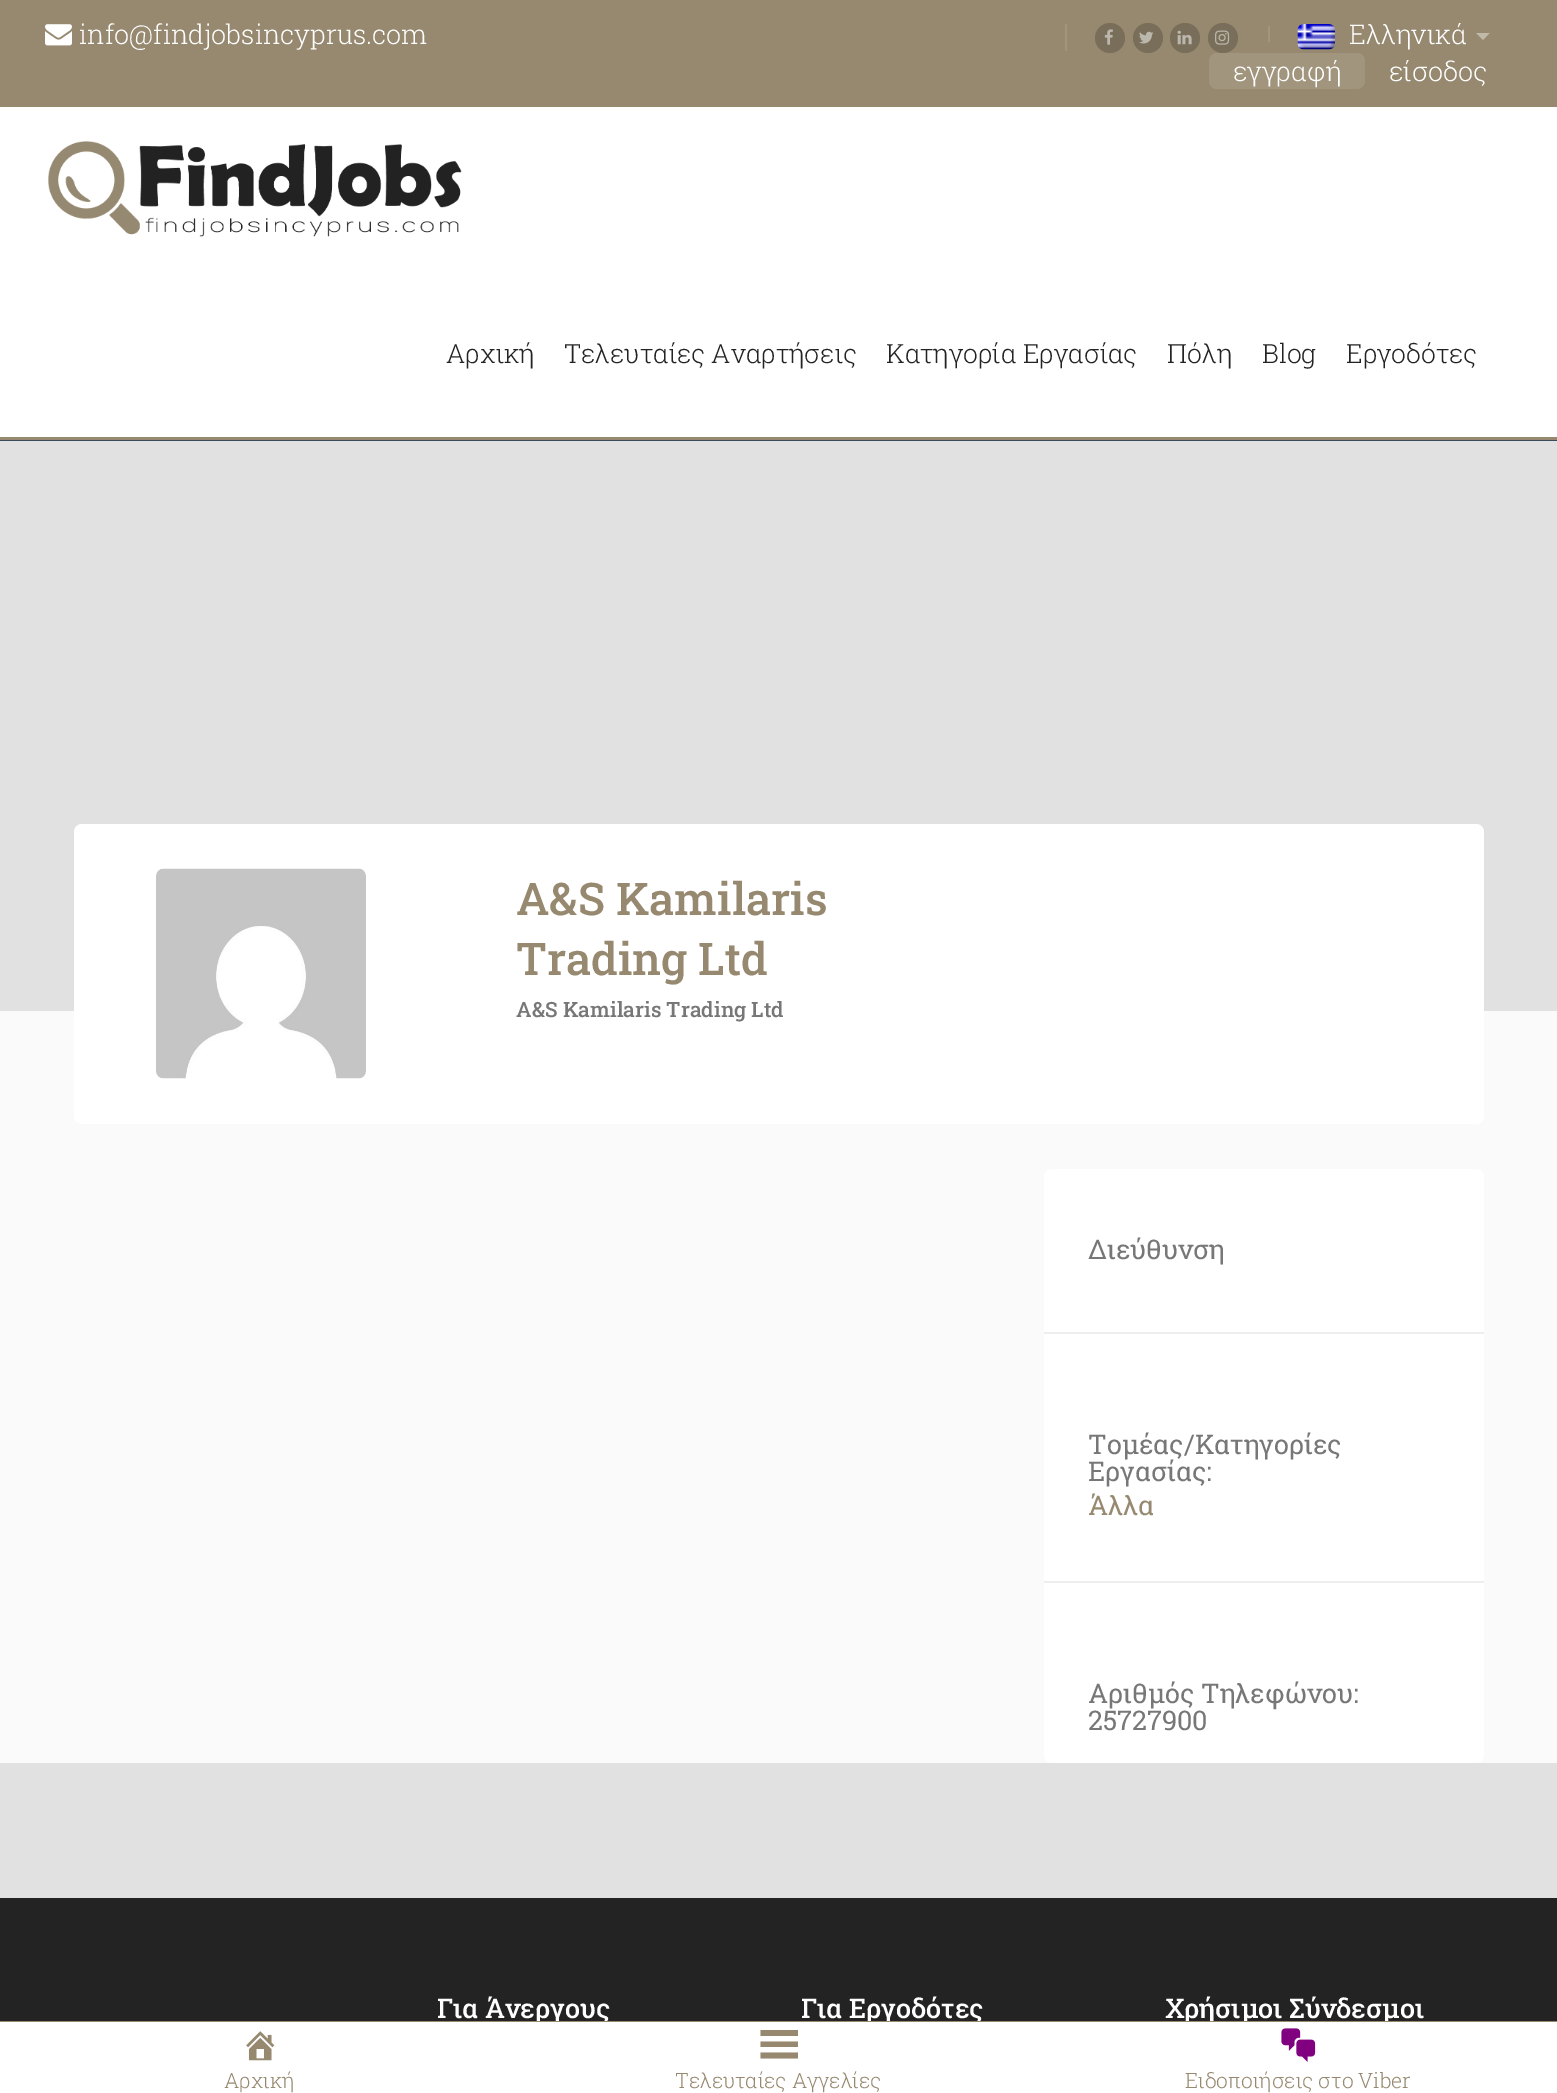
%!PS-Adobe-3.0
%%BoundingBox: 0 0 1557 2093
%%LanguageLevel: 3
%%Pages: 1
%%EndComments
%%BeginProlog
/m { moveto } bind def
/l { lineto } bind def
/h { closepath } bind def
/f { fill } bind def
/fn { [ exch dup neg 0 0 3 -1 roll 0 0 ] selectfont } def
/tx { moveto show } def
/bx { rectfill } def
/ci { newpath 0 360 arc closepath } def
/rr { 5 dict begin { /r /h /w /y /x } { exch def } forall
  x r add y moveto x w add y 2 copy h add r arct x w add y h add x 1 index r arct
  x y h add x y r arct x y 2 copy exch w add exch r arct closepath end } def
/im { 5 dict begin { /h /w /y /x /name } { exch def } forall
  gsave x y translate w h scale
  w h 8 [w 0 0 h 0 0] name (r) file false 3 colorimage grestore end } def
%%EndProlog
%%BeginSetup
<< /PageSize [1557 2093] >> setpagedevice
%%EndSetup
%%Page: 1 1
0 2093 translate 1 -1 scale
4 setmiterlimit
0.22 0.29 0.361 setrgbcolor
0 0 1557 2093 bx
0.588 0.537 0.435 setrgbcolor
0 0 1557 107 bx
(image0.raw) 45 24 27 22 im
/RobotoSlab-Light 27 fn
1 setgray
(info@findjobsincyprus.com) 79 44 tx
0.631 0.584 0.49 setrgbcolor
1065 24 2 27 bx
0.471 0.431 0.349 setrgbcolor
1110 38 15 ci f
(image1.raw) 1104 29 9 16 im
1148 38 15 ci f
(image2.raw) 1139 31 15 13 im
1185 38 15 ci f
(image3.raw) 1177 30 15 15 im
1223 38 15 ci f
(image4.raw) 1215 30 15 15 im
0.631 0.584 0.49 setrgbcolor
1268 26 2 16 bx
(image5.raw) 1297 24 38 26 im
1 setgray
(Ελληνικά) 1349 44 tx
0.753 0.722 0.663 setrgbcolor
1476 33 m 1489.5 33 l 1483 40 l h f
0.631 0.584 0.49 setrgbcolor
1209 53 156 36 8 rr f
1 setgray
(εγγραφή) 1233 81 tx
(είσοδος) 1389 81 tx
0.588 0.537 0.435 setrgbcolor
0 437 1557 3 bx
1 setgray
0 107 1557 330 bx
(image6.raw) 48 141 414 96 im
/RobotoSlab-Light 26.5 fn
0.137 setgray
(Αρχική) 446 363 tx
(Τελευταίες Αναρτήσεις) 564 363 tx
(Κατηγορία Εργασίας) 886 363 tx
(Πόλη) 1167 363 tx
(Blog) 1262 363 tx
(Εργοδότες) 1346 363 tx
0.882 setgray
0 441 1557 1457 bx
0.98 setgray
0 1011 1557 752 bx
1 setgray
74 824 1410 300 8 rr f
(image7.raw) 156 868 210 211 im
/RobotoSlab-Medium 45 fn
0.588 0.537 0.435 setrgbcolor
(A&S Kamilaris) 516 915 tx
(Trading Ltd) 516 975 tx
/RobotoSlab-Medium 21 fn
0.467 setgray
(A&S Kamilaris Trading Ltd) 516 1017 tx
1 setgray
1044 1169 440 594 8 rr f
0.933 setgray
1044 1332 440 2 bx
/RobotoSlab-Regular 27 fn
0.467 setgray
(Διεύθυνση) 1088 1259 tx
0.933 setgray
1044 1581 440 2 bx
0.467 setgray
(Τομέας/Κατηγορίες) 1088 1454 tx
(Εργασίας:) 1088 1481 tx
0.588 0.537 0.435 setrgbcolor
(Άλλα) 1088 1515 tx
0.467 setgray
(Αριθμός Τηλεφώνου:) 1088 1703 tx
(25727900) 1088 1730 tx
0.137 setgray
0 1898 1557 123 bx
/RobotoSlab-Medium 27 fn
1 setgray
(Για Άνεργους) 437 2018 tx
(Για Εργοδότες) 801 2018 tx
(Χρήσιμοι Σύνδεσμοι) 1165 2018 tx
0.588 0.537 0.435 setrgbcolor
0 2021 1557 1 bx
1 setgray
0 2022 1557 71 bx
(image8.raw) 246 2031 29 30 im
/RobotoSlab-Light 21 fn
0.588 0.537 0.435 setrgbcolor
(Αρχική) 224 2088 tx
798 2036 m 798 2030 l 760.5 2030 l 760.5 2036 l h 798 2047 m 798 2041.5 l 760.5 2041.5 l 760.5 2047 l h 798 2058.5 m 798 2052.5 l 760.5 2052.5 l 760.5 2058.5 l h f
(Τελευταίες Αγγελίες) 675 2088 tx
(image9.raw) 1281 2028 35 34 im
(Ειδοποιήσεις στο Viber) 1185 2088 tx
showpage
%%EOF
